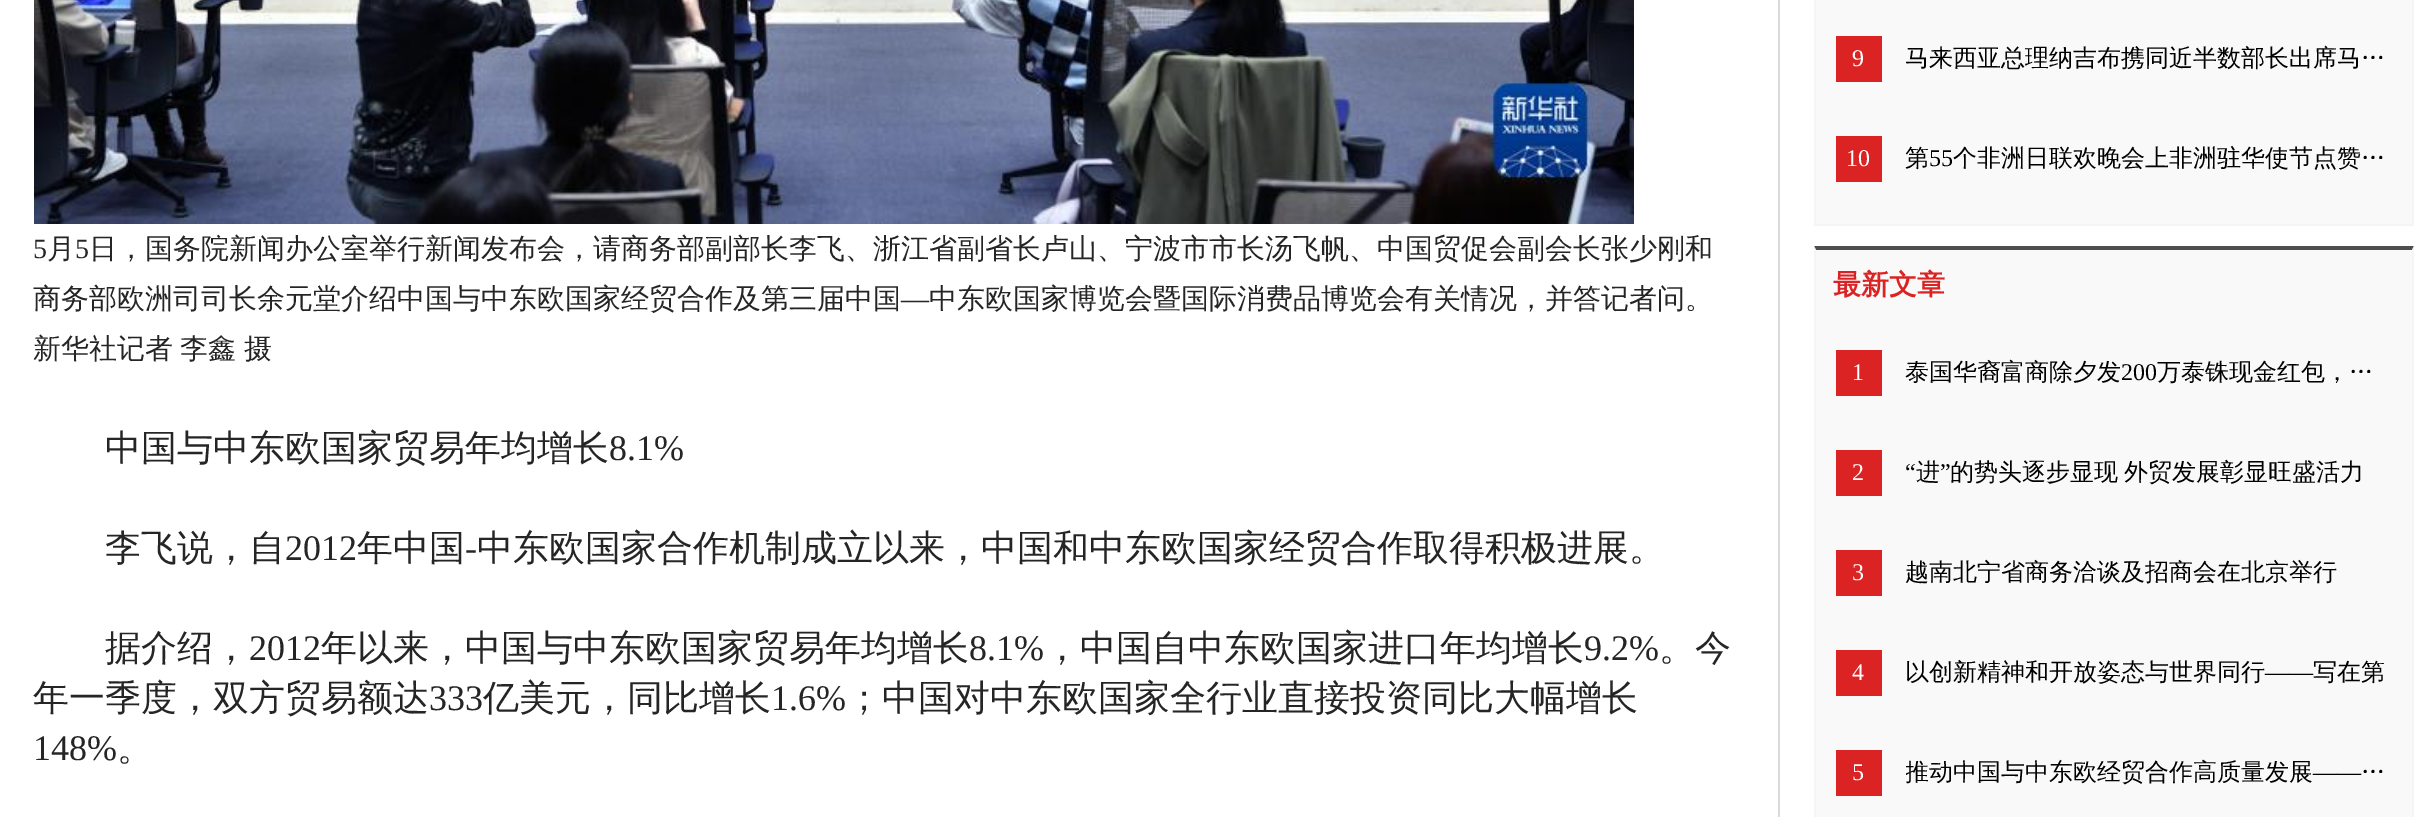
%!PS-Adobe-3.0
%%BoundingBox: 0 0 2425 817
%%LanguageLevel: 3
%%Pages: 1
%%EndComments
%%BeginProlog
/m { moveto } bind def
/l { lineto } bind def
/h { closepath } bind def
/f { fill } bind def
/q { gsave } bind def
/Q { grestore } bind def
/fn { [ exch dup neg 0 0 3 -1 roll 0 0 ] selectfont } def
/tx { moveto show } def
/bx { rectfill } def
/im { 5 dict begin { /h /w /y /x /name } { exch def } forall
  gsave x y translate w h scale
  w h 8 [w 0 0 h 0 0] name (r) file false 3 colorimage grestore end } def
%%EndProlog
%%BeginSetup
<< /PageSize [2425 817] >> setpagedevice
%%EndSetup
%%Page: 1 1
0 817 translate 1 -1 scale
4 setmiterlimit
1 setgray
0 0 2425 817 bx
0.855 setgray
1778 0 2 817 bx
(image0.raw) 34 0 1600 224 im
/LiberationSerif-Regular 28 fn
0.145 setgray
(5) 33 258 tx
/WenQuanYiZenHei-Medium 28 fn
(月) 47 258 tx
/LiberationSerif-Regular 28 fn
(5) 75 258 tx
/WenQuanYiZenHei-Medium 28 fn
(日，国务院新闻办公室举行新闻发布会，请商务部副部长李飞、浙江省副省长卢山、宁波市市长汤飞帆、中国贸促会副会长张少刚和) 89 258 tx
(商务部欧洲司司长余元堂介绍中国与中东欧国家经贸合作及第三届中国) 33 308 tx
/LiberationSerif-Regular 28 fn
(—) 901 308 tx
/WenQuanYiZenHei-Medium 28 fn
(中东欧国家博览会暨国际消费品博览会有关情况，并答记者问。) 929 308 tx
33 358 m -1 0 32 (新华社记者 李鑫 摄) widthshow
/WenQuanYiZenHei-Medium 36 fn
(中国与中东欧国家贸易年均增长) 105 460 tx
/LiberationSerif-Regular 36 fn
(8.1%) 609 460 tx
/WenQuanYiZenHei-Medium 36 fn
(李飞说，自) 105 560 tx
/LiberationSerif-Regular 36 fn
(2012) 285 560 tx
/WenQuanYiZenHei-Medium 36 fn
(年中国) 357 560 tx
/LiberationSerif-Regular 36 fn
(-) 465 560 tx
/WenQuanYiZenHei-Medium 36 fn
(中东欧国家合作机制成立以来，中国和中东欧国家经贸合作取得积极进展。) 477 560 tx
(据介绍，) 105 660 tx
/LiberationSerif-Regular 36 fn
(2012) 249 660 tx
/WenQuanYiZenHei-Medium 36 fn
(年以来，中国与中东欧国家贸易年均增长) 321 660 tx
/LiberationSerif-Regular 36 fn
(8.1%) 969 660 tx
/WenQuanYiZenHei-Medium 36 fn
(，中国自中东欧国家进口年均增长) 1044 660 tx
/LiberationSerif-Regular 36 fn
(9.2%) 1584 660 tx
/WenQuanYiZenHei-Medium 36 fn
(。今) 1659 660 tx
(年一季度，双方贸易额达) 33 710 tx
/LiberationSerif-Regular 36 fn
(333) 429 710 tx
/WenQuanYiZenHei-Medium 36 fn
(亿美元，同比增长) 483 710 tx
/LiberationSerif-Regular 36 fn
(1.6%) 771 710 tx
/WenQuanYiZenHei-Medium 36 fn
(；中国对中东欧国家全行业直接投资同比大幅增长) 846 710 tx
/LiberationSerif-Regular 36 fn
(148%) 33 760 tx
/WenQuanYiZenHei-Medium 36 fn
(。) 117 760 tx
0.976 setgray
1816 0 596 224 bx
0.961 setgray
2414 -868 m 2414 226 l 2412 224 l 2412 -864 l h f
1814 224 600 2 bx
1814 226 m 1814 -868 l 1816 -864 l 1816 224 l h f
0.859 0.137 0.137 setrgbcolor
1836 36 46 46 bx
/LiberationSerif-Regular 24 fn
1 setgray
(9) 1852 66 tx
/WenQuanYiZenHei-Medium 24 fn
0 setgray
(马来西亚总理纳吉布携同近半数部长出席马…) 1905 66 tx
0.859 0.137 0.137 setrgbcolor
1836 136 46 46 bx
/LiberationSerif-Regular 24 fn
1 setgray
(10) 1846 166 tx
/WenQuanYiZenHei-Medium 24 fn
0 setgray
(第) 1905 166 tx
/LiberationSerif-Regular 24 fn
(55) 1929 166 tx
/WenQuanYiZenHei-Medium 24 fn
(个非洲日联欢晚会上非洲驻华使节点赞…) 1953 166 tx
0.976 setgray
1816 250 596 567 bx
0.306 setgray
1814 246 m 2414 246 l 2412 250 l 1816 250 l h f
0.961 setgray
2414 246 m 2414 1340 l 2412 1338 l 2412 250 l h f
1814 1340 m 1814 246 l 1816 250 l 1816 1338 l h f
/WenQuanYiZenHei-Bold 28 fn
0.859 0.137 0.137 setrgbcolor
(最新文章) 1833 294 tx
1836 350 46 46 bx
/LiberationSerif-Regular 24 fn
1 setgray
(1) 1852 380 tx
/WenQuanYiZenHei-Medium 24 fn
0 setgray
(泰国华裔富商除夕发) 1905 380 tx
/LiberationSerif-Regular 24 fn
(200) 2121 380 tx
/WenQuanYiZenHei-Medium 24 fn
(万泰铢现金红包，…) 2157 380 tx
0.859 0.137 0.137 setrgbcolor
1836 450 46 46 bx
/LiberationSerif-Regular 24 fn
1 setgray
(2) 1852 480 tx
0 setgray
(“) 1905 480 tx
/WenQuanYiZenHei-Medium 24 fn
(进) 1916 480 tx
/LiberationSerif-Regular 24 fn
(”) 1940 480 tx
/WenQuanYiZenHei-Medium 24 fn
1950 480 m -1 0 32 (的势头逐步显现 外贸发展彰显旺盛活力) widthshow
0.859 0.137 0.137 setrgbcolor
1836 550 46 46 bx
/LiberationSerif-Regular 24 fn
1 setgray
(3) 1852 580 tx
/WenQuanYiZenHei-Medium 24 fn
0 setgray
(越南北宁省商务洽谈及招商会在北京举行) 1905 580 tx
0.859 0.137 0.137 setrgbcolor
1836 650 46 46 bx
/LiberationSerif-Regular 24 fn
1 setgray
(4) 1852 680 tx
/WenQuanYiZenHei-Medium 24 fn
0 setgray
(以创新精神和开放姿态与世界同行) 1905 680 tx
/LiberationSerif-Regular 24 fn
(——) 2265 680 tx
/WenQuanYiZenHei-Medium 24 fn
(写在第) 2313 680 tx
0.859 0.137 0.137 setrgbcolor
1836 750 46 46 bx
/LiberationSerif-Regular 24 fn
1 setgray
(5) 1852 780 tx
q
1906 722 480 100 rectclip
/WenQuanYiZenHei-Medium 24 fn
0 setgray
(推动中国与中东欧经贸合作高质量发展) 1905 780 tx
Q
/WenQuanYiZenHei-Medium 24 fn
0 setgray
(…) 2361 780 tx
/LiberationSerif-Regular 24 fn
(——) 2313 780 tx
showpage
%%EOF
